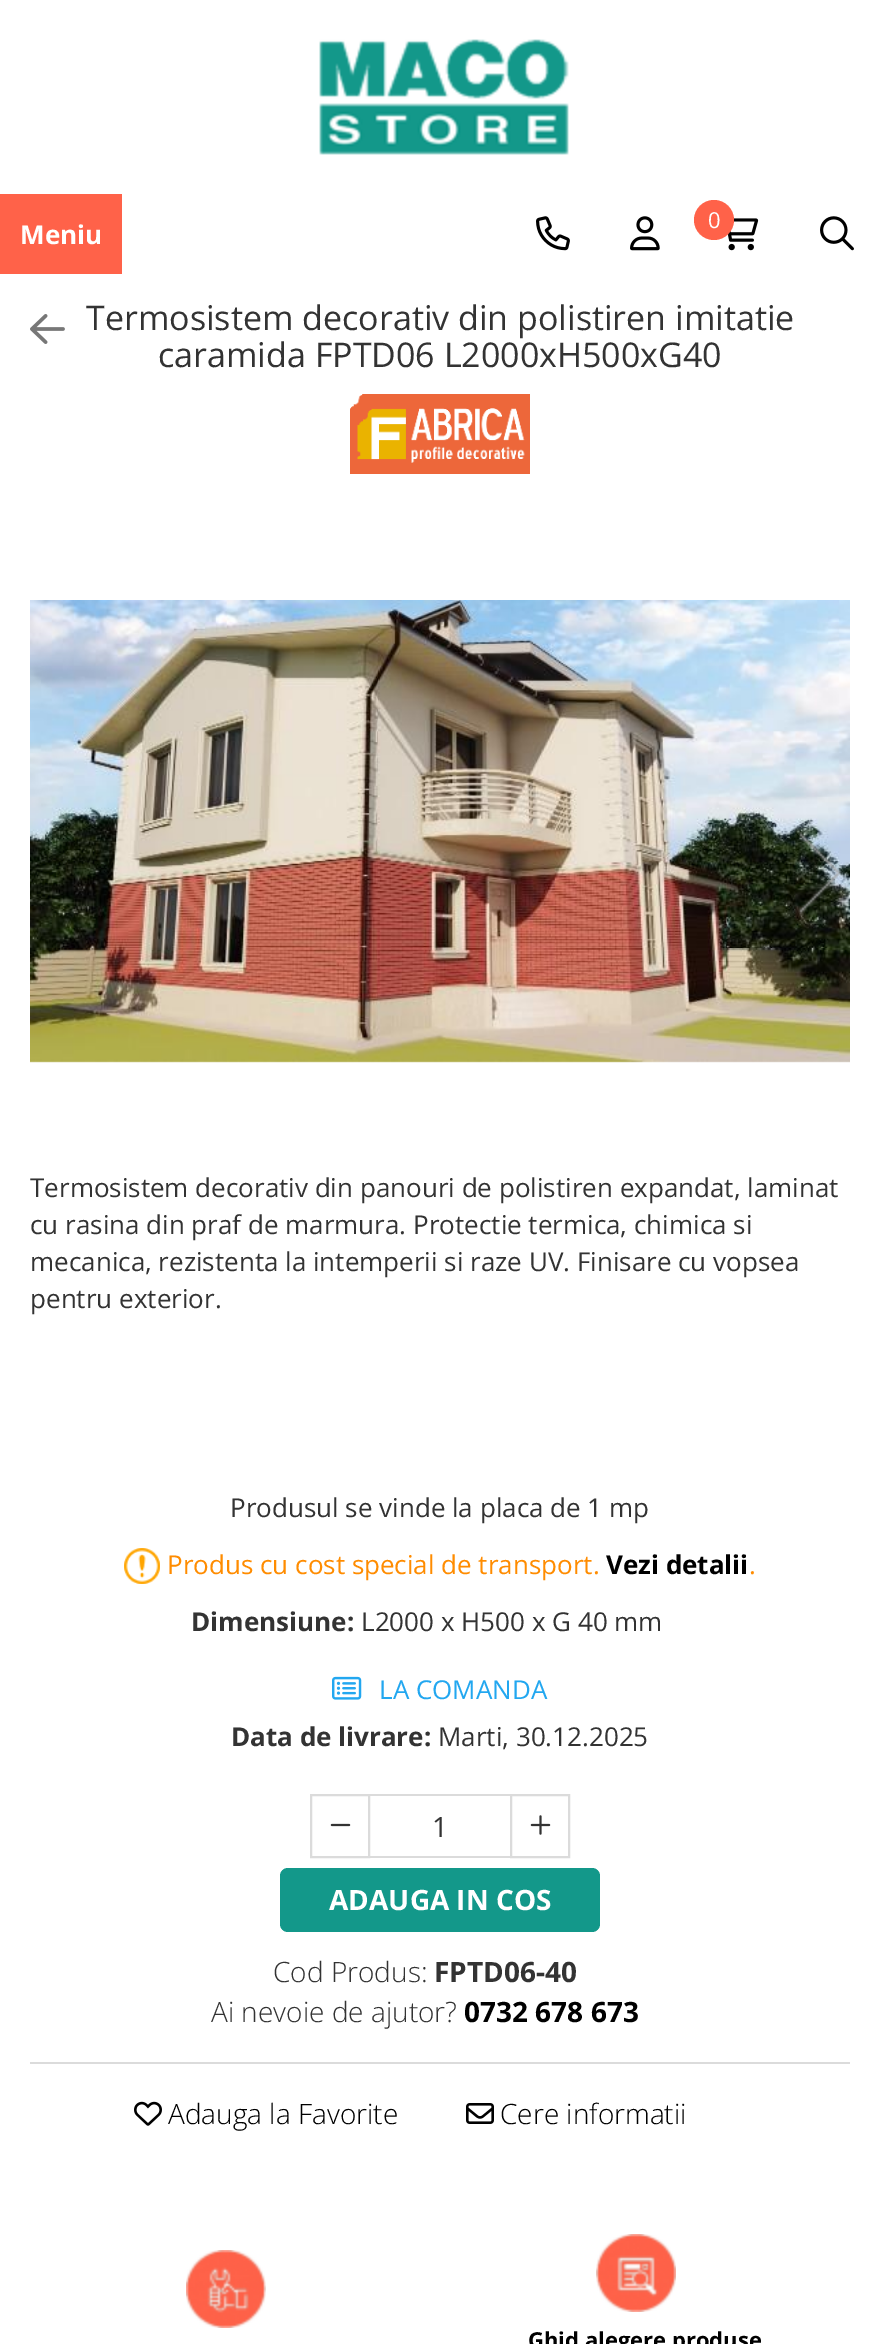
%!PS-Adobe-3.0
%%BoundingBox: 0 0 879 2344
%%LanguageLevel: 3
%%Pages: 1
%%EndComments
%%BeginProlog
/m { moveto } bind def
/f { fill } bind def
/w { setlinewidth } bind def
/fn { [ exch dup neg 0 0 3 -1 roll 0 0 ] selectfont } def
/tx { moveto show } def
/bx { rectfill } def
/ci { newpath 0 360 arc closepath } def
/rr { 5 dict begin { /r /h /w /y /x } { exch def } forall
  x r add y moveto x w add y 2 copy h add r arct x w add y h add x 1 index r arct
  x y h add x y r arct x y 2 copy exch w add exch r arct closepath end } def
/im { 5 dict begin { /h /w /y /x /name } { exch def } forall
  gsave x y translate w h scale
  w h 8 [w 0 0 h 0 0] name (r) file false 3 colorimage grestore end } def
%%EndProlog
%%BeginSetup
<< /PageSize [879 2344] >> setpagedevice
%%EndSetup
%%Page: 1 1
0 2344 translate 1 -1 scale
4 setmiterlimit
1 setgray
0 0 879 2344 bx
(image0.raw) 319 39 250 116 im
(image1.raw) 536 216 34 35 im
(image2.raw) 630 216 30 35 im
(image3.raw) 727 218 32 33 im
1 0.384 0.286 setrgbcolor
714 220 20 ci f
/OpenSans-Regular 22 fn
1 setgray
708 228 m -2 0 (0) ashow
(image4.raw) 820 216 34 35 im
1 0.384 0.286 setrgbcolor
0 194 122 80 bx
/OpenSans-Bold 26 fn
1 setgray
(Meniu) 20 244 tx
(image5.raw) 30 314 35 30 im
/OpenSans-Regular 34 fn
0.2 setgray
(Termosistem decorativ din polistiren imitatie) 86 330 tx
(caramida FPTD06 L2000xH500xG40) 158 367 tx
(image6.raw) 350 394 180 80 im
(image7.raw) 30 600 820 463 im
(image8.raw) 799 832 42 82 im
/OpenSans-Regular 26 fn
(Termosistem decorativ din panouri de polistiren expandat, laminat) 30 1197 tx
(cu rasina din praf de marmura. Protectie termica, chimica si) 30 1234 tx
(mecanica, rezistenta la intemperii si raze UV. Finisare cu vopsea) 30 1271 tx
(pentru exterior.) 30 1308 tx
(Produsul se vinde la placa de 1 mp) 230 1517 tx
(image9.raw) 124 1548 36 36 im
1 0.549 0 setrgbcolor
(Produs cu cost special de transport.) 167 1574 tx
/OpenSans-Bold 26 fn
0 setgray
(Vezi detalii) 606 1574 tx
/OpenSans-Regular 26 fn
1 0.549 0 setrgbcolor
(.) 749 1574 tx
/OpenSans-Bold 26 fn
0.2 setgray
(Dimensiune:) 191 1631 tx
/OpenSans-Regular 26 fn
(L2000 x H500 x G 40 mm) 361 1631 tx
(image10.raw) 332 1676 30 24 im
0.133 0.655 0.941 setrgbcolor
(LA COMANDA) 379 1699 tx
/OpenSans-Bold 26 fn
0.2 setgray
(Data de livrare:) 231 1746 tx
/OpenSans-Regular 26 fn
(Marti, 30.12.2025) 438 1746 tx
0.859 setgray
2 w
311 1795 58 62 rectstroke
(image11.raw) 330 1823 21 4 im
370 1794 140 2 bx
370 1856 140 2 bx
/OpenSans-Regular 28 fn
0.2 setgray
(1) 432 1837 tx
0.859 setgray
511 1795 58 62 rectstroke
(image12.raw) 530 1815 21 20 im
0.075 0.596 0.541 setrgbcolor
280 1868 320 64 8 rr f
/OpenSans-Bold 28 fn
1 setgray
(ADAUGA IN COS) 329 1910 tx
/OpenSans-Light 28 fn
0.2 setgray
(Cod Produs:) 273 1982 tx
/OpenSans-Bold 28 fn
(FPTD06-40) 434 1982 tx
/OpenSans-Light 28 fn
(Ai nevoie de ajutor?) 211 2022 tx
/OpenSans-Bold 28 fn
0 setgray
(0732 678 673) 464 2022 tx
0.859 setgray
30 2062 820 2 bx
(image13.raw) 134 2101 28 25 im
/OpenSans-Light 28 fn
0 setgray
(Adauga la Favorite) 168 2124 tx
(image14.raw) 466 2103 28 21 im
(Cere informatii) 500 2124 tx
(image15.raw) 186 2250 80 78 im
(image16.raw) 596 2234 80 78 im
/OpenSans-Bold 22 fn
(Ghid alegere produse) 528 2348 tx
showpage
%%EOF
